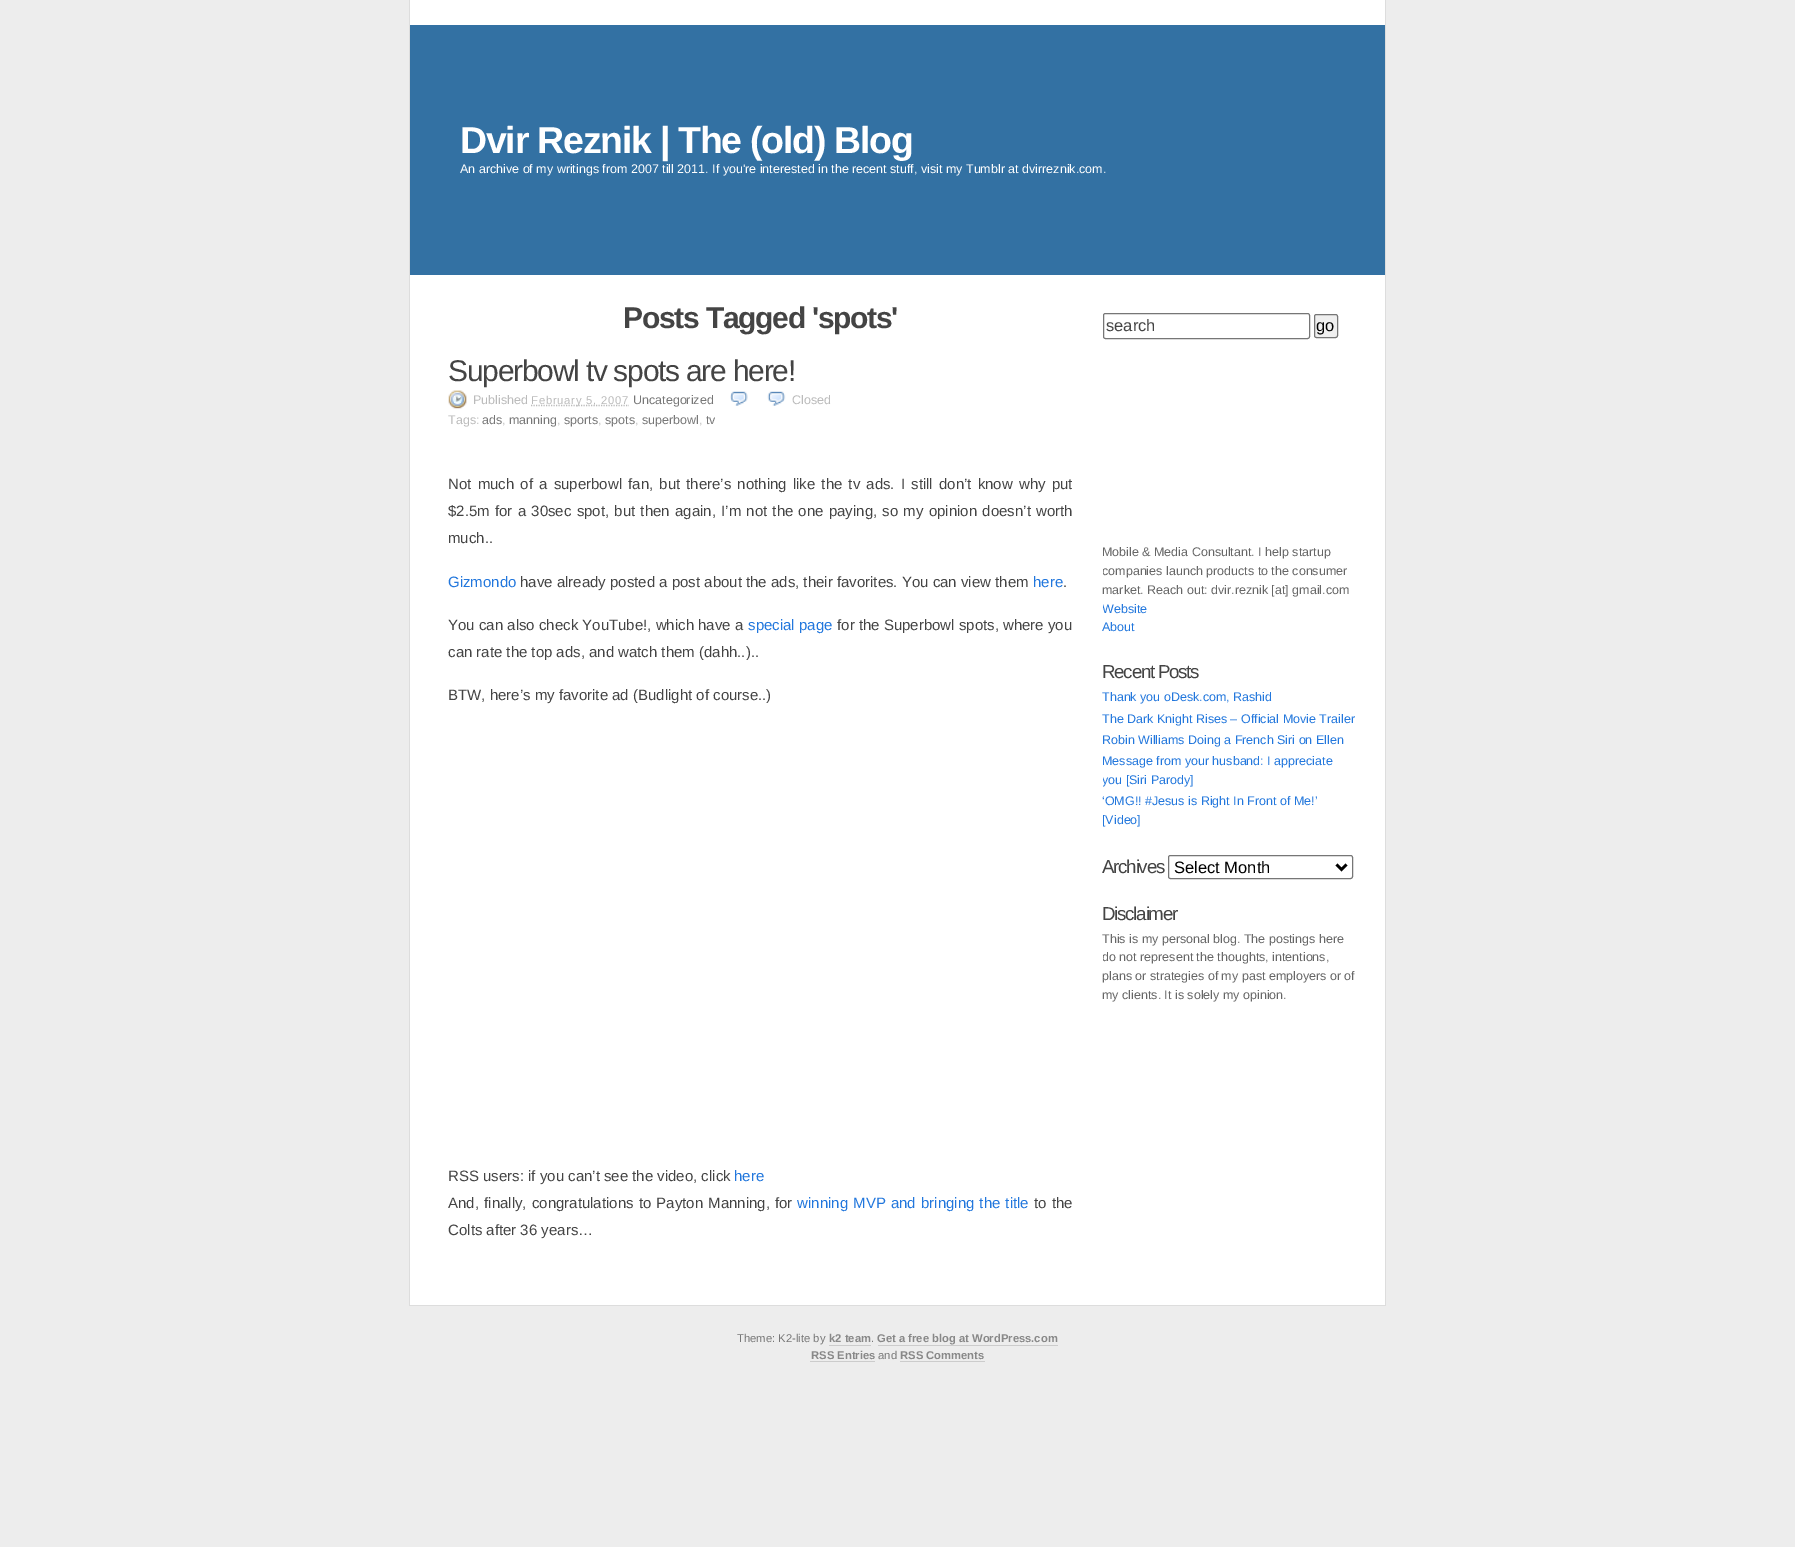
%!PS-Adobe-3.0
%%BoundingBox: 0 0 1795 1547
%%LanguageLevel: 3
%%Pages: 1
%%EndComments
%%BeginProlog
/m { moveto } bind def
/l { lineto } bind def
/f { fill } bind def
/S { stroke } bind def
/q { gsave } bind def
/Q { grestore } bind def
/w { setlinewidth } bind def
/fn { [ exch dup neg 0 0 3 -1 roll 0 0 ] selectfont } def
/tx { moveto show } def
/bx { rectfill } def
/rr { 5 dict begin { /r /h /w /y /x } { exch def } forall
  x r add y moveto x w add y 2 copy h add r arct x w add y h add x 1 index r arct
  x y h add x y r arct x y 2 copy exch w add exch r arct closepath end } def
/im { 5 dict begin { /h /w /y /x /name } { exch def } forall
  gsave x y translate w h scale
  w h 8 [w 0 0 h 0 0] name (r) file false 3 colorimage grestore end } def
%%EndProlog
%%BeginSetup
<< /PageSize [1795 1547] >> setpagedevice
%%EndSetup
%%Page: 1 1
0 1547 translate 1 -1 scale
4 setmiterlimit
0.929 setgray
0 0 1795 1547 bx
1 setgray
410 0 975 1305 bx
0.867 setgray
1385 0 1 1306 bx
409 1305 977 1 bx
409 0 1 1306 bx
0.2 0.443 0.639 setrgbcolor
410 25 975 250 bx
/LiberationSans-Bold 37.5 fn
1 setgray
460 153 m -1.25 0 (Dvir Reznik | The \(old\) Blog) ashow
/LiberationSans-Regular 12.5 fn
(An archive of my writings from 2007 till 2011. If you're interested in the recent stuff, visit my Tumblr at dvirreznik.com.) 460 173 tx
/LiberationSans-Bold 30 fn
0.267 setgray
623 328 m -1.25 0 (Posts Tagged 'spots') ashow
/LiberationSans-Regular 30 fn
448 381 m -1.25 0 (Superbowl tv spots are here!) ashow
(image0.raw) 448 390 19 19 im
/LiberationSans-Regular 12.5 fn
0.733 setgray
(Published) 473 404 tx
1.2 w
[1.25 1.25] 0 setdash
531 405.5 m 629 405.5 l S
/LiberationSans-Regular 11.25 fn
531 404 m 0.75 0 (February 5, 2007) ashow
/LiberationSans-Regular 12.5 fn
0.467 setgray
(Uncategorized) 633 404 tx
(image1.raw) 730 391 18 15 im
(image2.raw) 767 391 19 15 im
0.733 setgray
(Closed) 792 404 tx
(Tags:) 448 424 tx
0.467 setgray
(ads) 482 424 tx
0.733 setgray
(,) 502 424 tx
0.467 setgray
(manning) 509 424 tx
0.733 setgray
(,) 557 424 tx
0.467 setgray
(sports) 564 424 tx
0.733 setgray
(,) 598 424 tx
0.467 setgray
(spots) 605 424 tx
0.733 setgray
(,) 635 424 tx
0.467 setgray
(superbowl) 642 424 tx
0.733 setgray
(,) 699 424 tx
0.467 setgray
(tv) 706 424 tx
/LiberationSans-Regular 15 fn
0.267 setgray
448 489 m 2 0 32 (Not much of a superbowl fan, but there’s nothing like the tv ads. I still don’t know why put) widthshow
448 516 m 1.1 0 32 ($2.5m for a 30sec spot, but then again, I’m not the one paying, so my opinion doesn’t worth) widthshow
(much..) 448 543 tx
0.133 0.467 0.867 setrgbcolor
(Gizmondo) 448 587 tx
0.267 setgray
(have already posted a post about the ads, their favorites. You can view them) 520 587 tx
0.133 0.467 0.867 setrgbcolor
(here) 1033 587 tx
0.267 setgray
(.) 1063 587 tx
(You can also check YouTube!, which have a) 448 630 tx
0.133 0.467 0.867 setrgbcolor
(special page) 748 630 tx
0.267 setgray
(for the Superbowl spots, where you) 837 630 tx
(can rate the top ads, and watch them \(dahh..\)..) 448 657 tx
(BTW, here’s my favorite ad \(Budlight of course..\)) 448 700 tx
(RSS users: if you can’t see the video, click) 448 1181 tx
0.133 0.467 0.867 setrgbcolor
(here) 734 1181 tx
0.267 setgray
448 1208 m 1 0 32 (And, finally, congratulations to Payton Manning, for) widthshow
0.133 0.467 0.867 setrgbcolor
797 1208 m 1 0 32 (winning MVP and bringing the title) widthshow
0.267 setgray
1034 1208 m 1 0 32 (to the) widthshow
(Colts after 36 years…) 448 1235 tx
0.463 setgray
1 w
[] 0 setdash
1103.5 313.5 206 25 2 rr S
/LiberationSans-Regular 16.5 fn
0.267 setgray
(search) 1106 331 tx
0.937 setgray
1314.5 314.5 23 23 2 rr q f Q
0.463 setgray
S
0 setgray
(go) 1316 331 tx
/LiberationSans-Regular 12.5 fn
0.4 setgray
(Mobile & Media Consultant. I help startup) 1102 556 tx
q
1103 275 253 741 rectclip
(companies launch products to the consumer) 1102 575 tx
Q
(market. Reach out: dvir.reznik [at] gmail.com) 1102 594 tx
q
1103 275 253 741 rectclip
0.133 0.467 0.867 setrgbcolor
(Website) 1102 613 tx
Q
0.133 0.467 0.867 setrgbcolor
(About) 1102 631 tx
/LiberationSans-Regular 18.75 fn
0.267 setgray
1102 678 m -1.25 0 (Recent Posts) ashow
/LiberationSans-Regular 12.5 fn
0.133 0.467 0.867 setrgbcolor
(Thank you oDesk.com, Rashid) 1102 701 tx
(The Dark Knight Rises – Official Movie Trailer) 1102 723 tx
(Robin Williams Doing a French Siri on Ellen) 1102 744 tx
(Message from your husband: I appreciate) 1102 765 tx
q
1103 275 253 741 rectclip
(you [Siri Parody]) 1102 784 tx
Q
(‘OMG!! #Jesus is Right In Front of Me!’) 1102 805 tx
([Video]) 1102 824 tx
/LiberationSans-Regular 18.75 fn
0.267 setgray
1102 873 m -1.25 0 (Archives) ashow
0.463 setgray
1168.5 855.5 184 23 2 rr S
0 setgray
2.5 w
1336.5 864.5 m 1341.5 869.5 l 1346.5 864.5 l S
/LiberationSans-Regular 16.5 fn
(Select Month) 1174 873 tx
/LiberationSans-Regular 18.75 fn
0.267 setgray
1102 920 m -1.25 0 (Disclaimer) ashow
/LiberationSans-Regular 12.5 fn
0.4 setgray
(This is my personal blog. The postings here) 1102 943 tx
q
1103 275 253 741 rectclip
(do not represent the thoughts, intentions,) 1102 961 tx
Q
(plans or strategies of my past employers or of) 1102 980 tx
(my clients. It is solely my opinion.) 1102 999 tx
/LiberationSans-Regular 11.25 fn
0.467 setgray
(Theme: K2-lite by) 737 1342 tx
/LiberationSans-Bold 11.25 fn
0.533 setgray
(k2 team) 829 1342 tx
/LiberationSans-Regular 11.25 fn
0.467 setgray
(.) 871 1342 tx
0.8 setgray
829 1345 42 1 bx
/LiberationSans-Bold 11.25 fn
0.533 setgray
(Get a free blog at WordPress.com) 877 1342 tx
0.8 setgray
878 1345 180 1 bx
0.533 setgray
(RSS Entries) 811 1359 tx
0.8 setgray
810 1361 65 1 bx
/LiberationSans-Regular 11.25 fn
0.467 setgray
(and) 878 1359 tx
/LiberationSans-Bold 11.25 fn
0.533 setgray
(RSS Comments) 900 1359 tx
0.8 setgray
900 1361 85 1 bx
showpage
%%EOF
